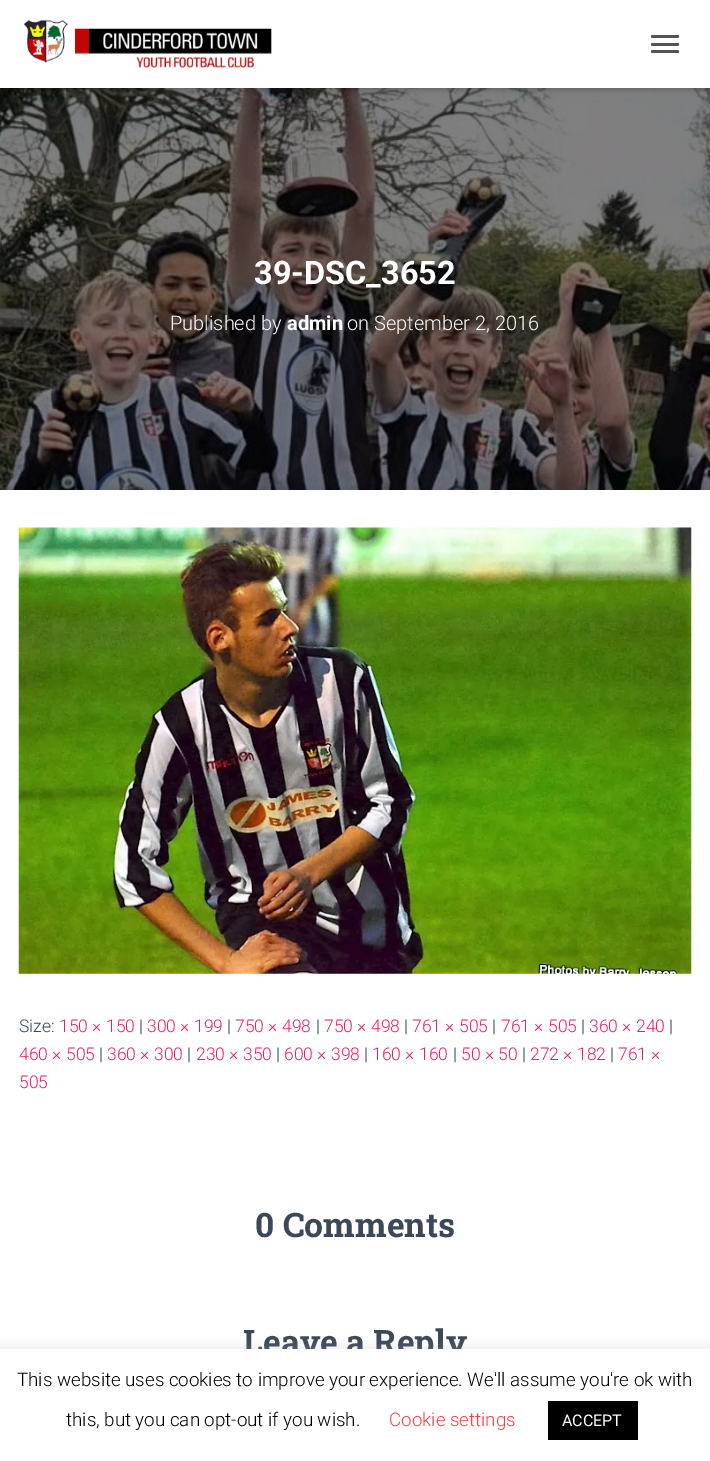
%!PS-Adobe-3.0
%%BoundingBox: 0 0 710 1461
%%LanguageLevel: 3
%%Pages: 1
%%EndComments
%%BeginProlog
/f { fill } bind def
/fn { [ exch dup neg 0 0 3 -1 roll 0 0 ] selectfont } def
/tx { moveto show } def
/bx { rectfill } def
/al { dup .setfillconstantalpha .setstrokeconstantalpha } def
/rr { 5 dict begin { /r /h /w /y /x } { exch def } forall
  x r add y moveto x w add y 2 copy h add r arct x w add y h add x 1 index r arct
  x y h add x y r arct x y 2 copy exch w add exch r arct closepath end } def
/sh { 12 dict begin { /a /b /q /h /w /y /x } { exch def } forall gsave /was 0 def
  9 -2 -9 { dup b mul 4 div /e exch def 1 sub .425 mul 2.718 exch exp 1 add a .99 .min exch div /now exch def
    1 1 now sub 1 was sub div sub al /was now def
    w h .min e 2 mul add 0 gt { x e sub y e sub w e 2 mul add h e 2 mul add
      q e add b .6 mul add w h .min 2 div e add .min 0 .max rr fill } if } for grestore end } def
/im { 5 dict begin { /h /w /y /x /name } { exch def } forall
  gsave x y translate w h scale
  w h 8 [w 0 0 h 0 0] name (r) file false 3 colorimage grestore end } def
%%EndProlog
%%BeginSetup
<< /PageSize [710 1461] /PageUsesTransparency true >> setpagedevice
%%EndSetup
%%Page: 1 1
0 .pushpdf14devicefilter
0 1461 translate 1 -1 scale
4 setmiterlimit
1 setgray
0 0 710 1461 bx
(image1.raw) 0 88 710 402 im
0 setgray
3 8 705 82 0 3 0.1 sh
0 1 710 88 0 6 0.12 sh
8 9 695 72 0 6 0.42 sh
1 setgray
0 0 710 88 bx
(image0.raw) 23 19 249 51 im
0.333 setgray
651 35 28 3 1.5 rr f
651 43 28 3 1.5 rr f
651 50 28 3 1.5 rr f
/Roboto-Bold 32.5 fn
1 setgray
(39-DSC_3652) 254 284 tx
/Roboto-Light 20 fn
(Published by) 170 330 tx
/Roboto-Bold 20 fn
(admin) 287 330 tx
/Roboto-Light 20 fn
(on September 2, 2016) 347 330 tx
0 setgray
-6 491 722 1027 0 19 0.12 sh
1 setgray
0 490 710 859 bx
(image2.raw) 18 527 674 447 im
/Roboto-Light 17.5 fn
0.235 0.282 0.345 setrgbcolor
(Size:) 19 1032 tx
0.914 0.118 0.388 setrgbcolor
(150 × 150) 59 1032 tx
0.235 0.282 0.345 setrgbcolor
(|) 139 1032 tx
0.914 0.118 0.388 setrgbcolor
(300 × 199) 147 1032 tx
0.235 0.282 0.345 setrgbcolor
(|) 227 1032 tx
0.914 0.118 0.388 setrgbcolor
(750 × 498) 235 1032 tx
0.235 0.282 0.345 setrgbcolor
(|) 316 1032 tx
0.914 0.118 0.388 setrgbcolor
(750 × 498) 324 1032 tx
0.235 0.282 0.345 setrgbcolor
(|) 404 1032 tx
0.914 0.118 0.388 setrgbcolor
(761 × 505) 412 1032 tx
0.235 0.282 0.345 setrgbcolor
(|) 492 1032 tx
0.914 0.118 0.388 setrgbcolor
(761 × 505) 501 1032 tx
0.235 0.282 0.345 setrgbcolor
(|) 581 1032 tx
0.914 0.118 0.388 setrgbcolor
(360 × 240) 589 1032 tx
0.235 0.282 0.345 setrgbcolor
(|) 669 1032 tx
0.914 0.118 0.388 setrgbcolor
(460 × 505) 19 1060 tx
0.235 0.282 0.345 setrgbcolor
(|) 99 1060 tx
0.914 0.118 0.388 setrgbcolor
(360 × 300) 107 1060 tx
0.235 0.282 0.345 setrgbcolor
(|) 187 1060 tx
0.914 0.118 0.388 setrgbcolor
(230 × 350) 196 1060 tx
0.235 0.282 0.345 setrgbcolor
(|) 276 1060 tx
0.914 0.118 0.388 setrgbcolor
(600 × 398) 284 1060 tx
0.235 0.282 0.345 setrgbcolor
(|) 364 1060 tx
0.914 0.118 0.388 setrgbcolor
(160 × 160) 372 1060 tx
0.235 0.282 0.345 setrgbcolor
(|) 453 1060 tx
0.914 0.118 0.388 setrgbcolor
(50 × 50) 461 1060 tx
0.235 0.282 0.345 setrgbcolor
(|) 522 1060 tx
0.914 0.118 0.388 setrgbcolor
(272 × 182) 530 1060 tx
0.235 0.282 0.345 setrgbcolor
(|) 610 1060 tx
0.914 0.118 0.388 setrgbcolor
(761 ×) 618 1060 tx
(505) 19 1088 tx
/RobotoSlab-Bold 33.75 fn
0.235 0.282 0.345 setrgbcolor
(0 Comments) 255 1237 tx
(Leave a Reply) 243 1354 tx
0.675 0.671 0.671 setrgbcolor
0 1348 710 112 0 6 0.3 sh
1 setgray
0 1349 710 112 bx
/Roboto-Light 18.75 fn
0 setgray
(This website uses cookies to improve your experience. We'll assume you're ok with) 17 1386 tx
(this, but you can opt-out if you wish.) 66 1426 tx
1 0.247 0.247 setrgbcolor
(Cookie settings) 389 1426 tx
0 setgray
548 1401 90 39 bx
/Roboto-Regular 16 fn
1 setgray
(ACCEPT) 562 1426 tx
.poppdf14devicefilter showpage
%%EOF
